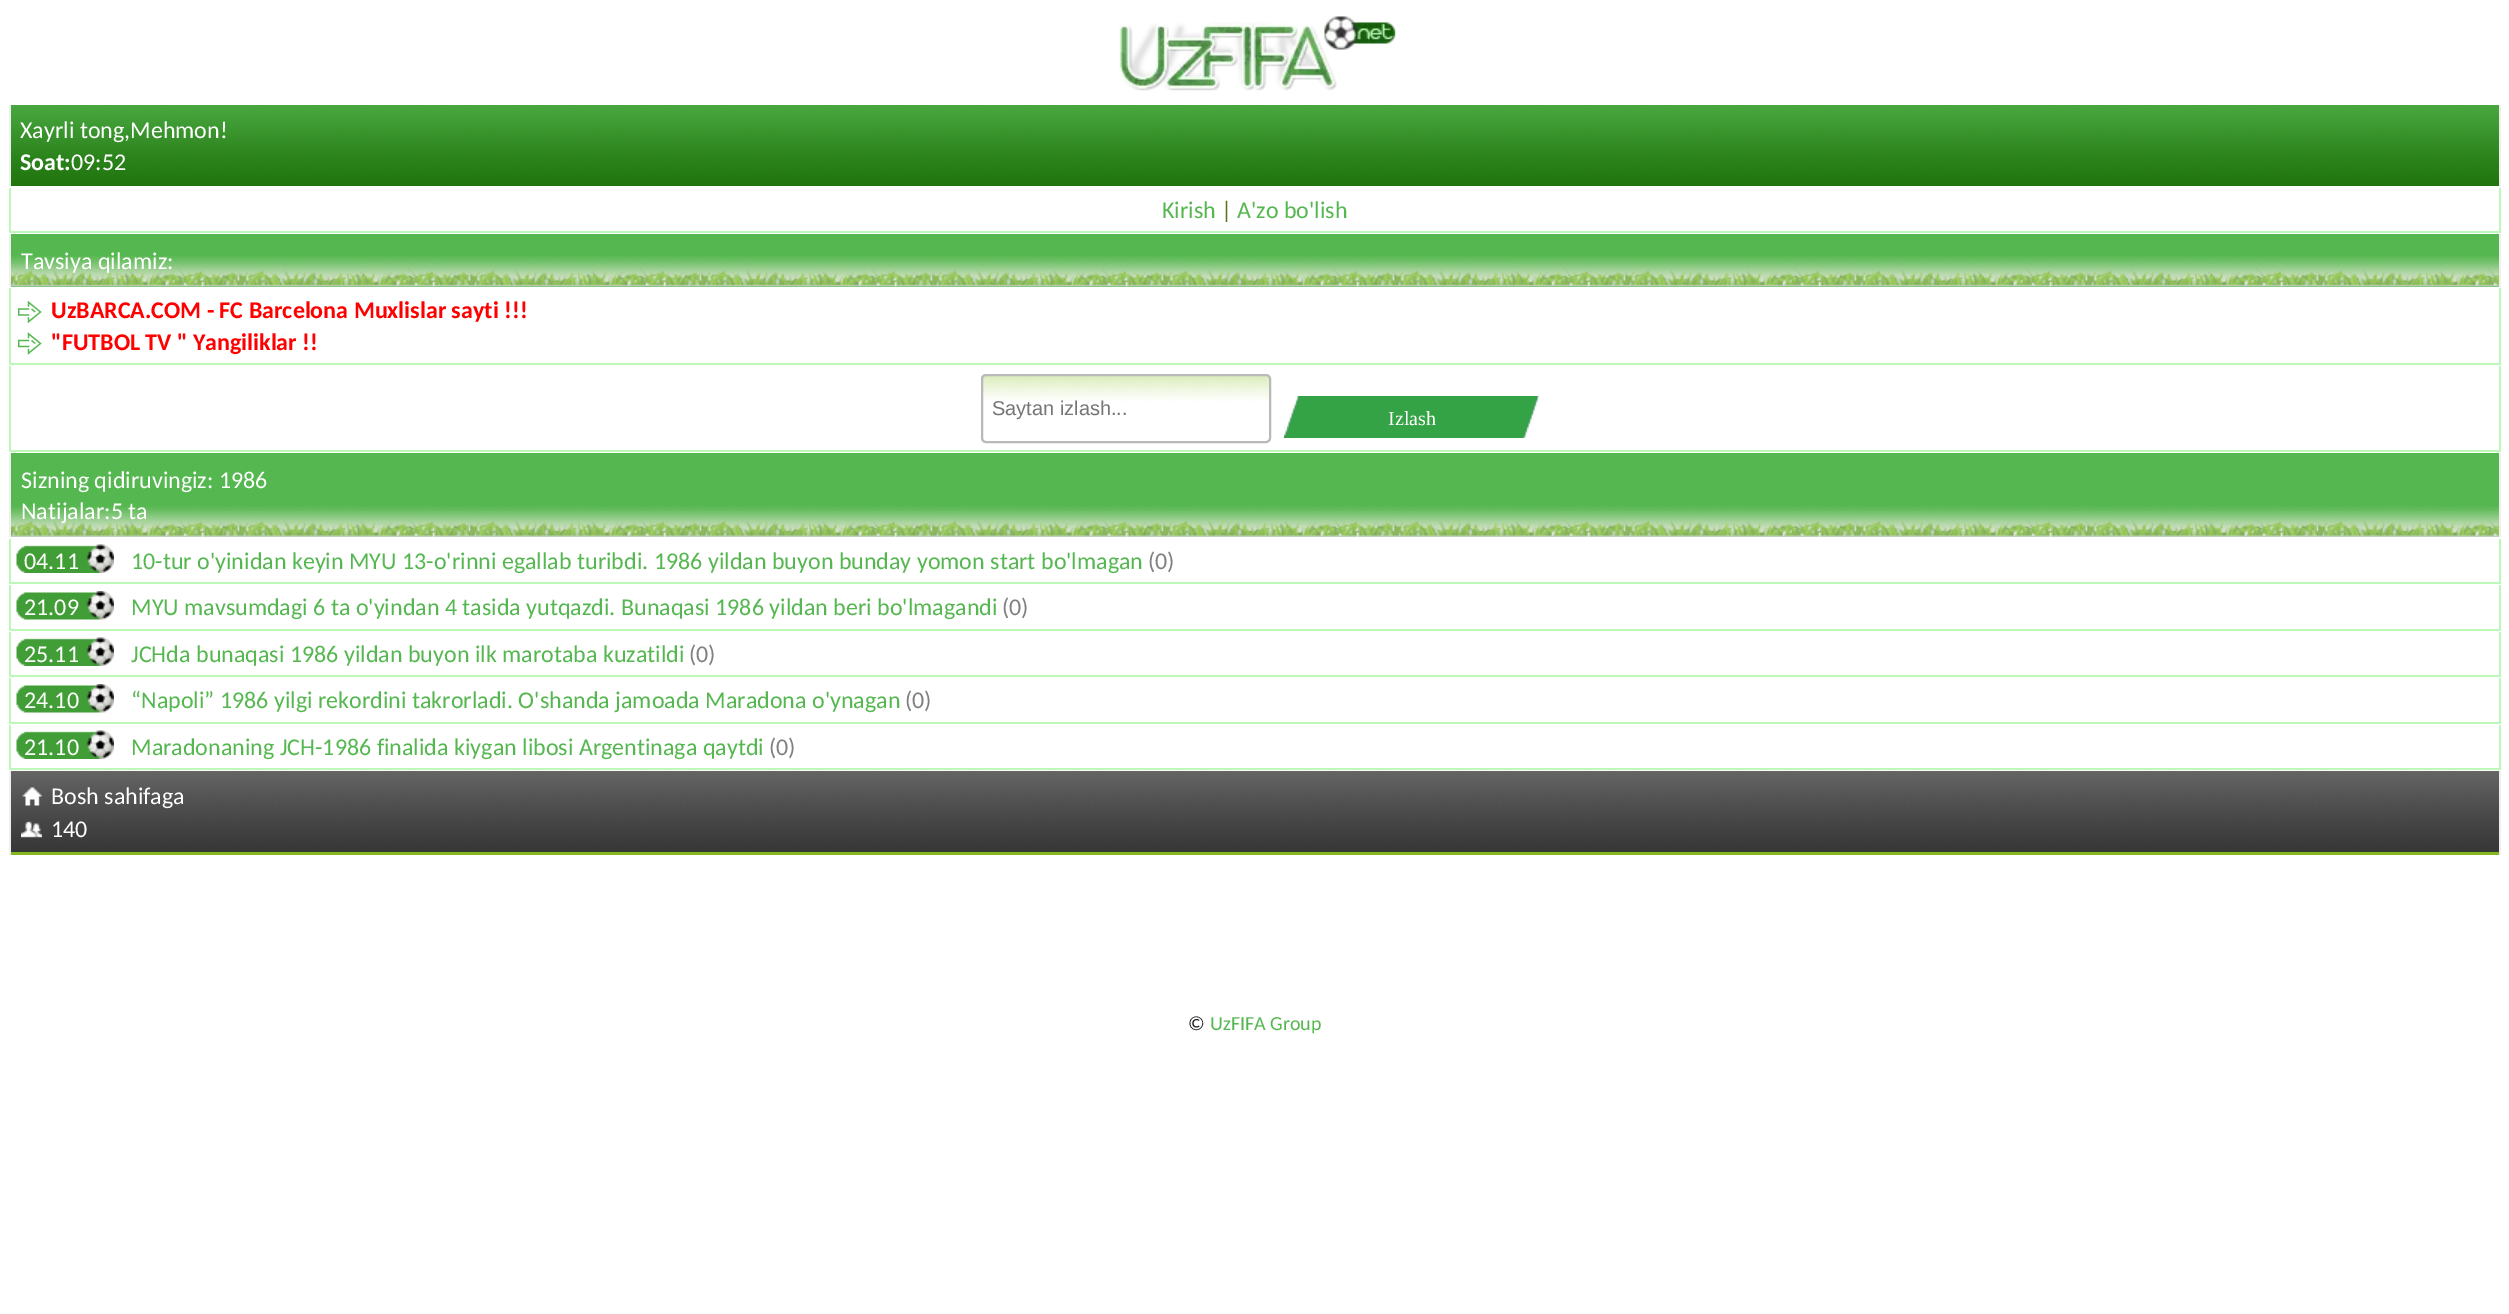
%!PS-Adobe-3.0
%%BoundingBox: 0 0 2509 1314
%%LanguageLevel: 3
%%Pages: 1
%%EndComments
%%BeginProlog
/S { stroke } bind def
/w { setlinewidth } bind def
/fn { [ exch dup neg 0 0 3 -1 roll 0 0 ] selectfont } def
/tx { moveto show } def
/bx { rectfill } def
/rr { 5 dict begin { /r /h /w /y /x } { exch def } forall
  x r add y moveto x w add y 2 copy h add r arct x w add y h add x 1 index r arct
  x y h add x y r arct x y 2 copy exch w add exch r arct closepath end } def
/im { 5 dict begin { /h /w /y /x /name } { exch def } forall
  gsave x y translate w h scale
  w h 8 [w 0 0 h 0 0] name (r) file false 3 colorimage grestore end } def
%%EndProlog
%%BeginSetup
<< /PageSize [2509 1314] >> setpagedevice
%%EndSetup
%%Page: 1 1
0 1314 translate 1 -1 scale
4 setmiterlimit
1 setgray
0 0 2509 1314 bx
(image0.raw) 1119 16 277 75 im
(image1.raw) 11 105 2488 81 im
0.937 setgray
2499 105 2 81 bx
9 105 2 81 bx
/Carlito-Regular 24 fn
1 setgray
(Xayrli tong,Mehmon!) 20 138 tx
/Carlito-Bold 24 fn
(Soat:) 20 170 tx
/Carlito-Regular 24 fn
(09:52) 71 170 tx
0.737 0.973 0.722 setrgbcolor
2499 188 2 45 bx
9 231 2492 2 bx
9 188 2 45 bx
0.333 0.718 0.31 setrgbcolor
(Kirish) 1162 218 tx
0.322 0.451 0.09 setrgbcolor
(|) 1221 218 tx
0.333 0.718 0.31 setrgbcolor
(A'zo bo'lish) 1237 218 tx
11 234 2488 53 bx
(image2.raw) 11 256 2488 31 im
0.937 setgray
2499 234 2 53 bx
9 234 2 53 bx
1 setgray
(Tavsiya qilamiz:) 21 269 tx
0.737 0.973 0.722 setrgbcolor
2499 288 2 77 bx
9 363 2492 2 bx
9 288 2 77 bx
(image3.raw) 18 300 24 24 im
/Carlito-Bold 24 fn
1 0 0 setrgbcolor
(UzBARCA.COM - FC Barcelona Muxlislar sayti !!!) 51 318 tx
(image4.raw) 18 332 24 23 im
("FUTBOL TV " Yangiliklar !!) 51 350 tx
0.737 0.973 0.722 setrgbcolor
2499 366 2 86 bx
9 450 2492 2 bx
9 366 2 86 bx
(image5.raw) 981 375 290 26 im
0.725 setgray
2 w
982 375 288 67 4 rr S
/LiberationSans-Regular 20 fn
0.459 setgray
(Saytan izlash...) 992 415 tx
(image6.raw) 1284 396 255 42 im
/LiberationSerif-Regular 20 fn
1 setgray
(Izlash) 1388 425 tx
0.333 0.718 0.31 setrgbcolor
11 453 2488 53 bx
(image7.raw) 11 506 2488 31 im
0.937 setgray
2499 453 2 84 bx
9 453 2 84 bx
/Carlito-Regular 24 fn
1 setgray
(Sizning qidiruvingiz: 1986) 21 488 tx
(Natijalar:5 ta) 21 519 tx
0.737 0.973 0.722 setrgbcolor
2499 539 2 45 bx
9 582 2492 2 bx
9 539 2 45 bx
(image8.raw) 16 544 98 29 im
1 setgray
(04.11) 24 569 tx
0.333 0.718 0.31 setrgbcolor
(10-tur o'yinidan keyin MYU 13-o'rinni egallab turibdi. 1986 yildan buyon bunday yomon start bo'lmagan) 131 569 tx
0.502 setgray
(\(0\)) 1148 569 tx
0.737 0.973 0.722 setrgbcolor
2499 585 2 45 bx
9 629 2492 2 bx
9 585 2 45 bx
(image9.raw) 16 591 98 29 im
1 setgray
(21.09) 24 615 tx
0.333 0.718 0.31 setrgbcolor
(MYU mavsumdagi 6 ta o'yindan 4 tasida yutqazdi. Bunaqasi 1986 yildan beri bo'lmagandi) 131 615 tx
0.502 setgray
(\(0\)) 1002 615 tx
0.737 0.973 0.722 setrgbcolor
2499 632 2 45 bx
9 675 2492 2 bx
9 632 2 45 bx
(image8.raw) 16 637 98 29 im
1 setgray
(25.11) 24 662 tx
0.333 0.718 0.31 setrgbcolor
(JCHda bunaqasi 1986 yildan buyon ilk marotaba kuzatildi) 131 662 tx
0.502 setgray
(\(0\)) 689 662 tx
0.737 0.973 0.722 setrgbcolor
2499 678 2 45 bx
9 722 2492 2 bx
9 678 2 45 bx
(image9.raw) 16 684 98 29 im
1 setgray
(24.10) 24 708 tx
0.333 0.718 0.31 setrgbcolor
(“Napoli” 1986 yilgi rekordini takrorladi. O'shanda jamoada Maradona o'ynagan) 131 708 tx
0.502 setgray
(\(0\)) 905 708 tx
0.737 0.973 0.722 setrgbcolor
2499 725 2 45 bx
9 768 2492 2 bx
9 725 2 45 bx
(image8.raw) 16 730 98 29 im
1 setgray
(21.10) 24 755 tx
0.333 0.718 0.31 setrgbcolor
(Maradonaning JCH-1986 finalida kiygan libosi Argentinaga qaytdi) 131 755 tx
0.502 setgray
(\(0\)) 769 755 tx
0.514 0.725 0.118 setrgbcolor
11 852 2488 3 bx
(image10.raw) 11 771 2488 81 im
0.937 setgray
2499 771 2 84 bx
9 771 2 84 bx
(image11.raw) 22 787 20 19 im
1 setgray
(Bosh sahifaga) 51 804 tx
(image12.raw) 21 821 21 17 im
(140) 51 837 tx
/Carlito-Regular 20 fn
0.122 setgray
(©) 1188 1030 tx
0.333 0.718 0.31 setrgbcolor
(UzFIFA Group) 1210 1030 tx
showpage
%%EOF
